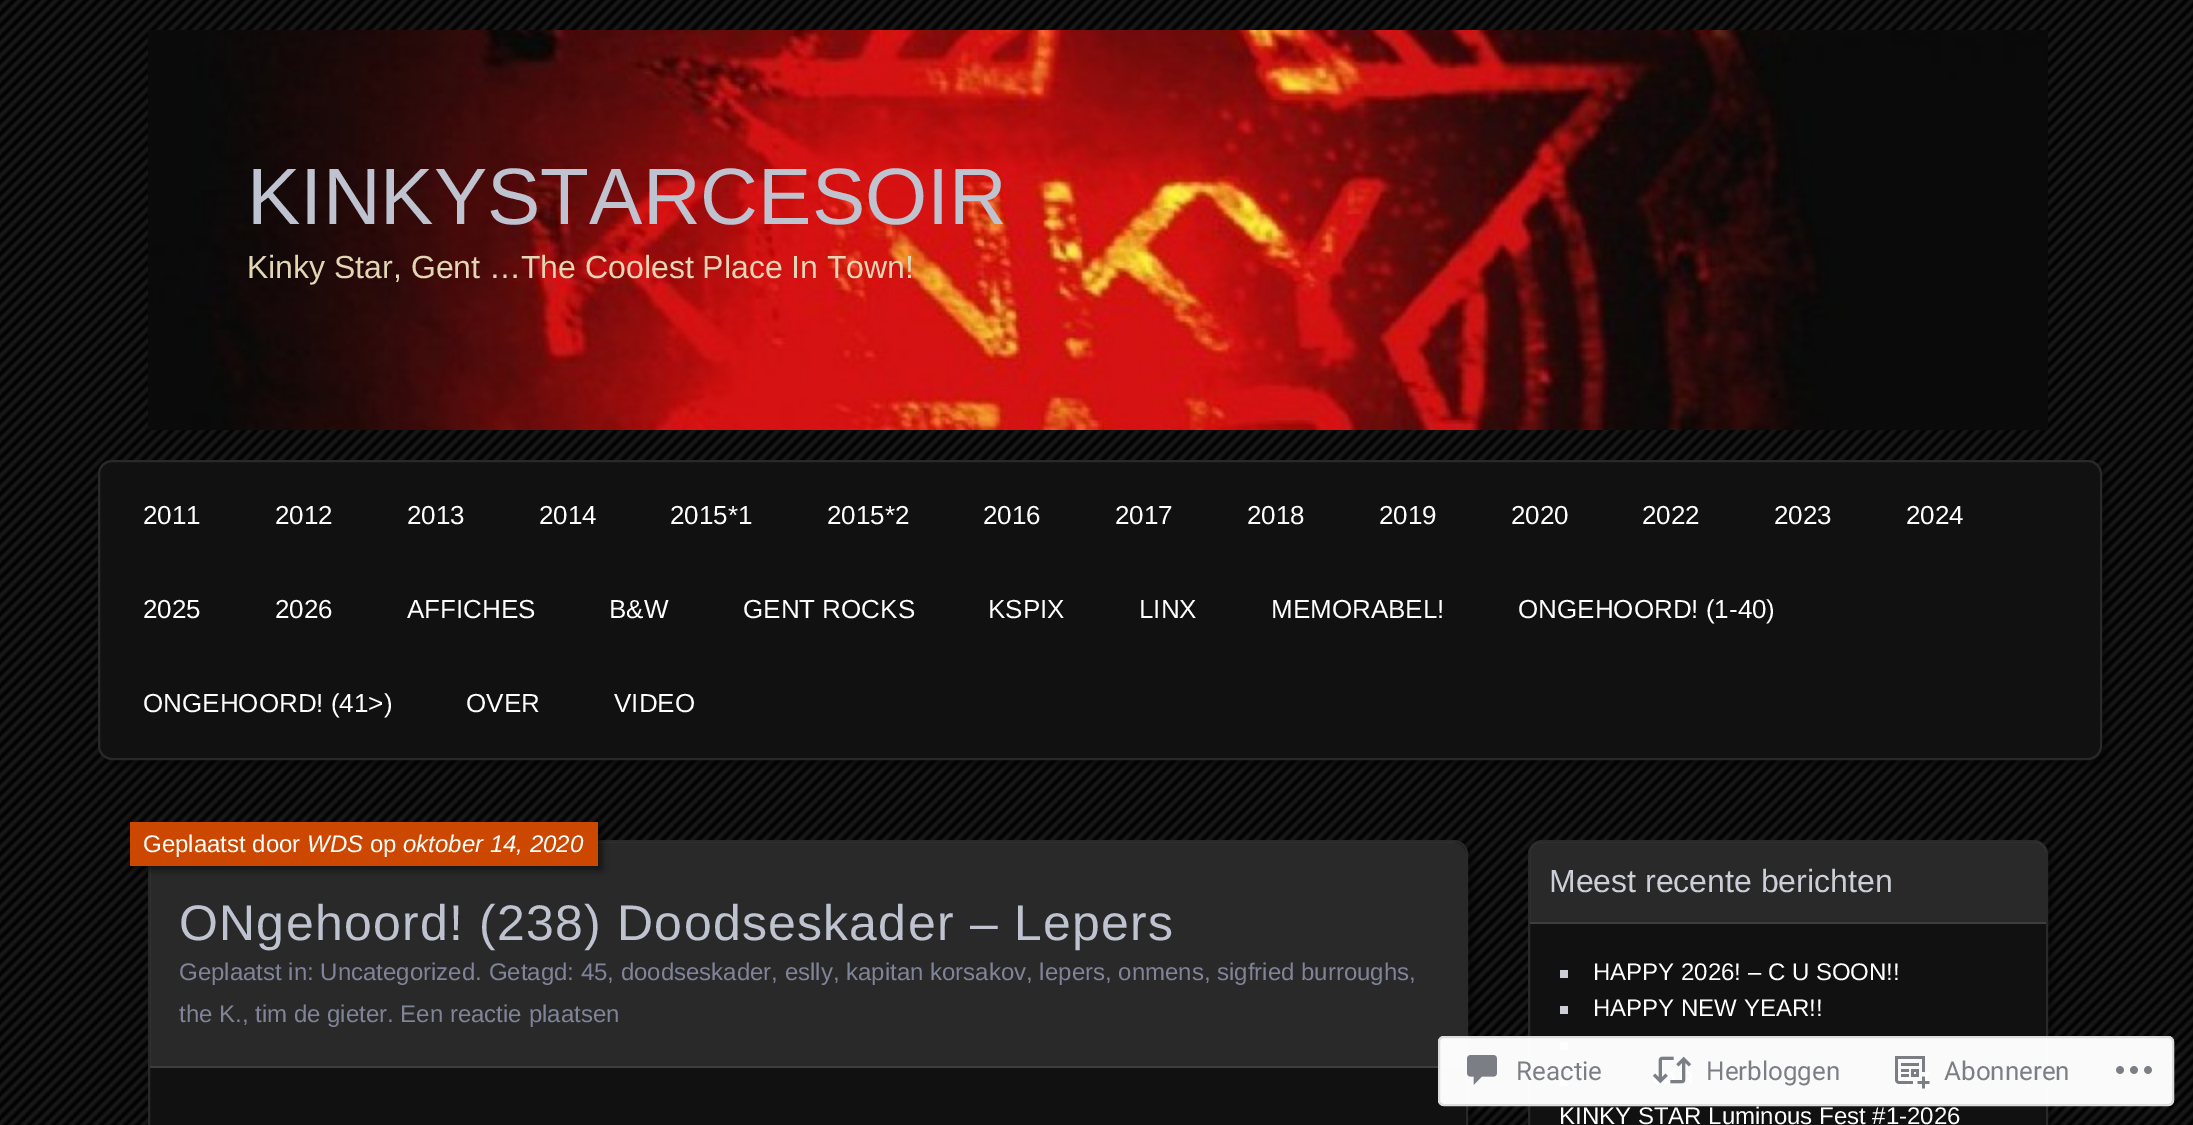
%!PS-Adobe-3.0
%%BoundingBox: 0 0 2193 1125
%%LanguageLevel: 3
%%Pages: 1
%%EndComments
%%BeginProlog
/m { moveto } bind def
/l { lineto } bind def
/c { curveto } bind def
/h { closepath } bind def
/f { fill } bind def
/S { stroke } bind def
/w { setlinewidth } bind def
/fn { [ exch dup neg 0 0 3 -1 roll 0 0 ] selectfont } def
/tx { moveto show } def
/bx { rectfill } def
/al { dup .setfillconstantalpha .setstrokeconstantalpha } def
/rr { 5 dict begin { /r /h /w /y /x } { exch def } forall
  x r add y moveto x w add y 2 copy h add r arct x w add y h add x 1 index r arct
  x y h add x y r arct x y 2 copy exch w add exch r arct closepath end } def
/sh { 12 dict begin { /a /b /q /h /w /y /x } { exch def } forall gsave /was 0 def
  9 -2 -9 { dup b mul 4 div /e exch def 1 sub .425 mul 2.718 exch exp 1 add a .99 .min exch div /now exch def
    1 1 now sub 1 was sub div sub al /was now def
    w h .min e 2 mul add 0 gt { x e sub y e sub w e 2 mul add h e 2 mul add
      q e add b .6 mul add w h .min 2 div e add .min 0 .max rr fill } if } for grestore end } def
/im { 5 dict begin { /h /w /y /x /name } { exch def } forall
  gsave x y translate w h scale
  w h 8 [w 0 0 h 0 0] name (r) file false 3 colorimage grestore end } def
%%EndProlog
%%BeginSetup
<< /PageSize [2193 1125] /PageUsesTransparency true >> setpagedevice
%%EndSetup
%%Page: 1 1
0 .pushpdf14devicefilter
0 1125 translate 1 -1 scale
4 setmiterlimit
0 setgray
0 0 2193 1125 bx
(image0.raw) 0 0 2193 1125 im
(image1.raw) 148 30 1900 400 im
/LiberationSans-Regular 80 fn
0.749 0.765 0.812 setrgbcolor
(KINKYSTARCESOIR) 247 224 tx
/LiberationSans-Regular 32 fn
0.886 0.839 0.71 setrgbcolor
(Kinky Star, Gent …The Coolest Place In Town!) 247 278 tx
0 setgray
104 466 2004 300 14 4 0.45 sh
0.067 setgray
98 460 2004 300 14 rr f
0.1 al
1 setgray
2 w
99 461 2002 298 13 rr S
/LiberationSans-Regular 26 fn
1 al
(2011) 143 524 tx
(2012) 275 524 tx
(2013) 407 524 tx
(2014) 539 524 tx
(2015*1) 670 524 tx
(2015*2) 827 524 tx
(2016) 983 524 tx
(2017) 1115 524 tx
(2018) 1247 524 tx
(2019) 1379 524 tx
(2020) 1511 524 tx
(2022) 1642 524 tx
(2023) 1774 524 tx
(2024) 1906 524 tx
(2025) 143 618 tx
(2026) 275 618 tx
(AFFICHES) 407 618 tx
(B&W) 609 618 tx
(GENT ROCKS) 743 618 tx
(KSPIX) 988 618 tx
(LINX) 1139 618 tx
(MEMORABEL!) 1271 618 tx
(ONGEHOORD! \(1-40\)) 1518 618 tx
(ONGEHOORD! \(41>\)) 143 712 tx
(OVER) 466 712 tx
(VIDEO) 614 712 tx
0 setgray
154 846 1320 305 14 4 0.45 sh
0.067 setgray
148 840 1320 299 14 rr f
0.1 al
1 setgray
149 841 1318 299 13 rr S
164 842 m 1452 842 l 1459.5 842 1466 848.5 1466 856 c 1466 1068 l 150 1068 l 150 856 l 150 848.5 156.5 842 164 842 c h f
1 al
0.243 setgray
150 1066 1316 2 bx
0 setgray
134 826 468 44 0 3.5 0.45 sh
0.8 0.278 0 setrgbcolor
130 822 468 44 bx
/LiberationSans-Regular 24 fn
1 setgray
(Geplaatst door) 143 852 tx
/LiberationSans-Italic 24 fn
(WDS) 307 852 tx
/LiberationSans-Regular 24 fn
(op) 370 852 tx
/LiberationSans-Italic 24 fn
(oktober 14, 2020) 403 852 tx
/LiberationSans-Regular 50 fn
0.749 0.765 0.812 setrgbcolor
179 940 m 1.25 0 (ONgehoord! \(238\) Doodseskader – Lepers) ashow
/LiberationSans-Regular 24 fn
0.498 0.518 0.596 setrgbcolor
(Geplaatst in: Uncategorized. Getagd: 45, doodseskader, eslly, kapitan korsakov, lepers, onmens, sigfried burroughs,) 179 980 tx
(the K., tim de gieter. Een reactie plaatsen) 179 1022 tx
0 setgray
1532 844 520 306 14 3.5 0.45 sh
0.067 setgray
1528 840 520 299 14 rr f
0.1 al
1 setgray
1529 841 518 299 13 rr S
1542 842 m 2034 842 l 2040.5 842 2046 847.5 2046 854 c 2046 924 l 1530 924 l 1530 854 l 1530 847.5 1535.5 842 1542 842 c h f
1 al
0.243 setgray
1530 922 516 2 bx
/LiberationSans-Regular 32 fn
0.8 0.812 0.843 setrgbcolor
(Meest recente berichten) 1549 892 tx
1560 970 8 8 bx
/LiberationSans-Regular 24 fn
1 setgray
(HAPPY 2026! – C U SOON!!) 1593 980 tx
0.8 0.812 0.843 setrgbcolor
1560 1006 8 8 bx
1 setgray
(HAPPY NEW YEAR!!) 1593 1016 tx
0.8 0.812 0.843 setrgbcolor
1560 1042 8 8 bx
1560 1078 8 8 bx
1 setgray
(KINKY STAR Luminous Fest #1-2026) 1559 1124 tx
0.98 al
1438 1036 736 70 6 rr f
0.863 0.863 0.871 setrgbcolor
1439 1037 734 68 5 rr S
1 al
(image2.raw) 1467 1055 30 30 im
/Roboto-Regular 26 fn
0.482 0.498 0.518 setrgbcolor
(Reactie) 1516 1080 tx
(image3.raw) 1652 1056 40 28 im
(Herbloggen) 1706 1080 tx
(image4.raw) 1895 1056 35 33 im
(Abonneren) 1944 1080 tx
(image5.raw) 2116 1066 36 8 im
.poppdf14devicefilter showpage
%%EOF
